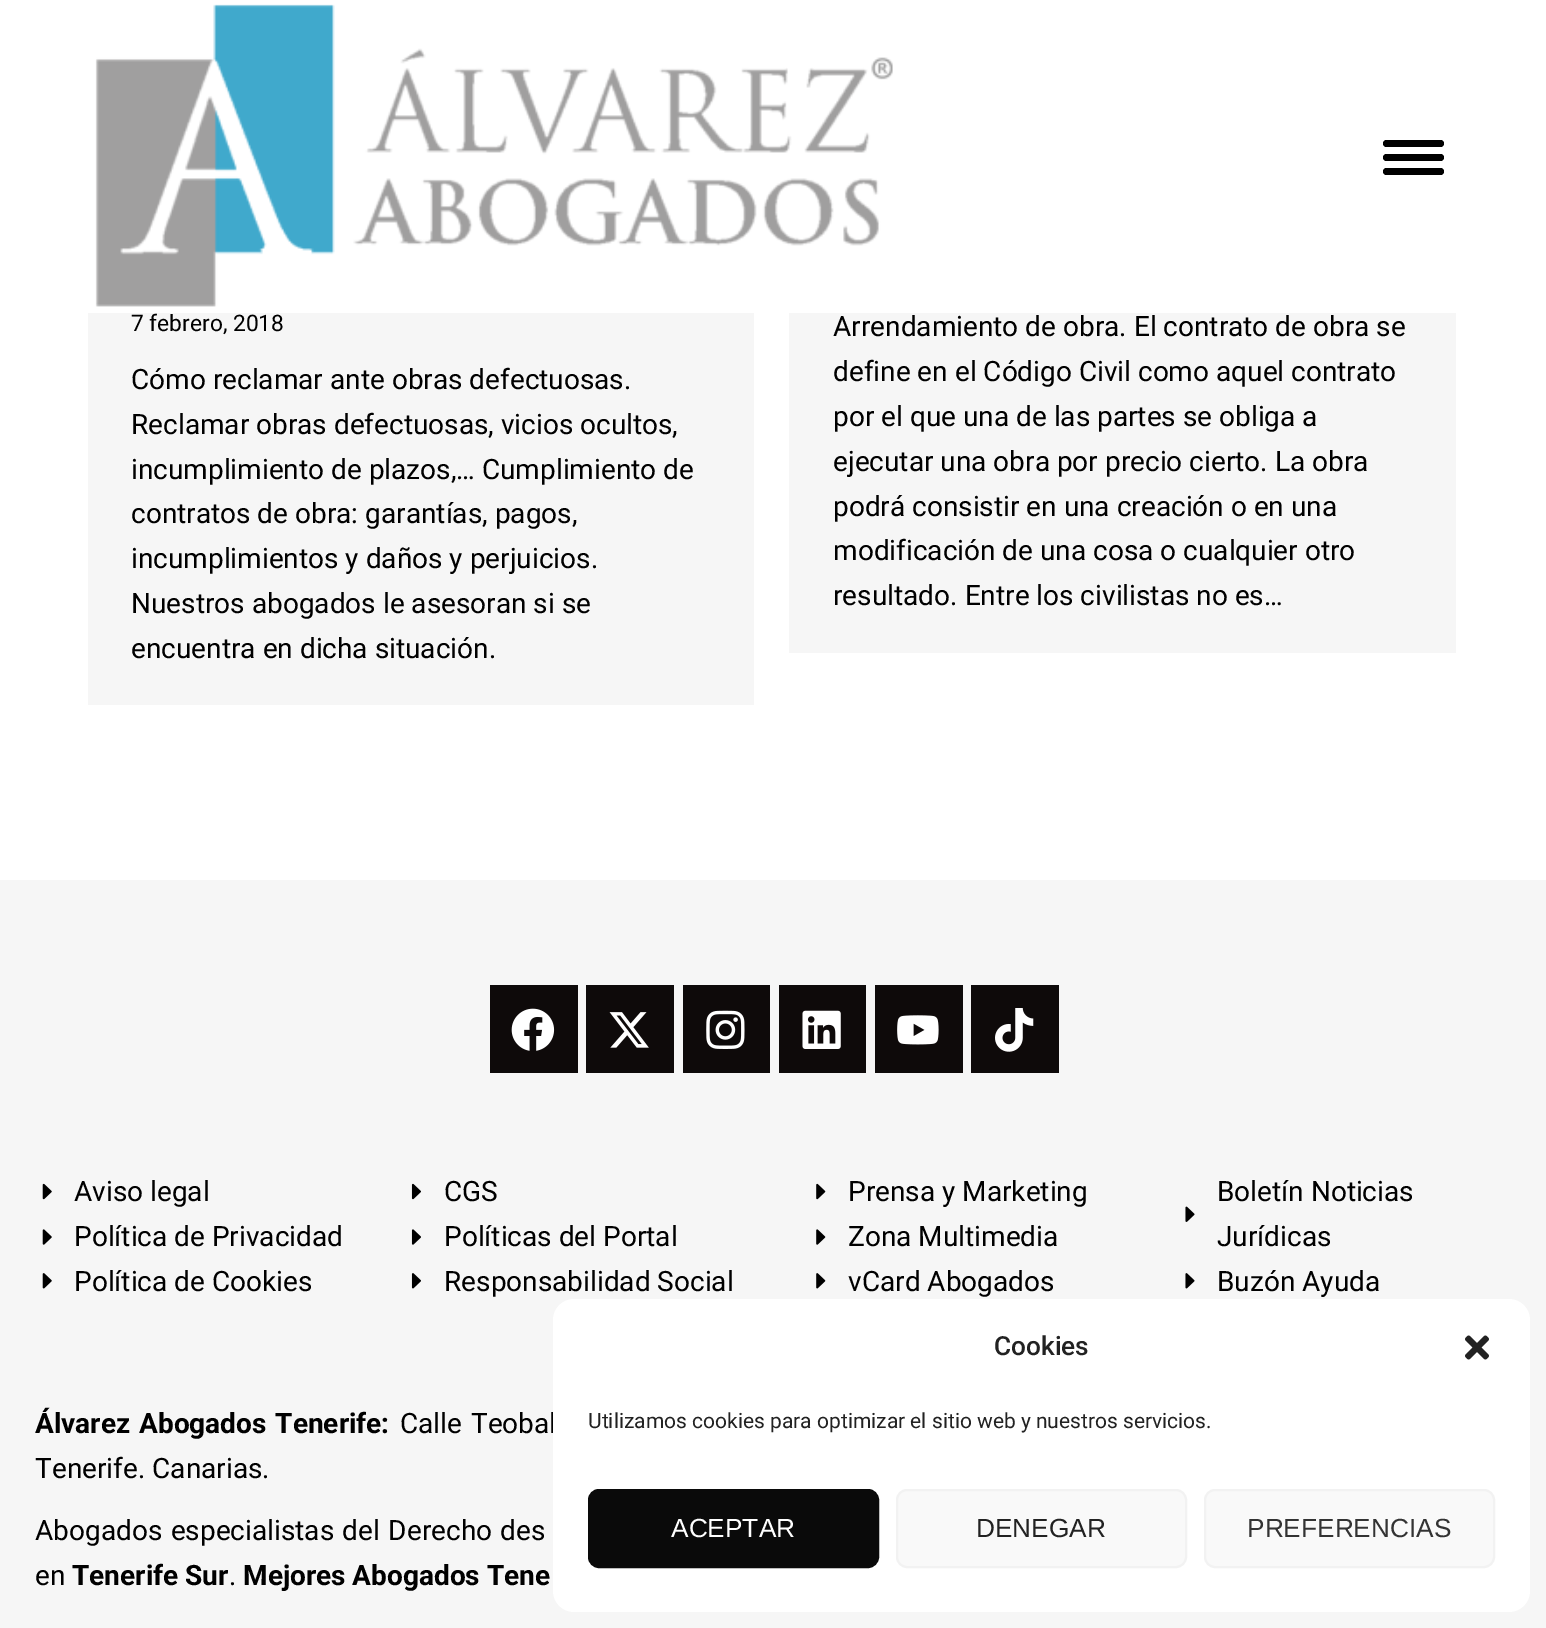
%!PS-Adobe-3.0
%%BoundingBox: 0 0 1546 1628
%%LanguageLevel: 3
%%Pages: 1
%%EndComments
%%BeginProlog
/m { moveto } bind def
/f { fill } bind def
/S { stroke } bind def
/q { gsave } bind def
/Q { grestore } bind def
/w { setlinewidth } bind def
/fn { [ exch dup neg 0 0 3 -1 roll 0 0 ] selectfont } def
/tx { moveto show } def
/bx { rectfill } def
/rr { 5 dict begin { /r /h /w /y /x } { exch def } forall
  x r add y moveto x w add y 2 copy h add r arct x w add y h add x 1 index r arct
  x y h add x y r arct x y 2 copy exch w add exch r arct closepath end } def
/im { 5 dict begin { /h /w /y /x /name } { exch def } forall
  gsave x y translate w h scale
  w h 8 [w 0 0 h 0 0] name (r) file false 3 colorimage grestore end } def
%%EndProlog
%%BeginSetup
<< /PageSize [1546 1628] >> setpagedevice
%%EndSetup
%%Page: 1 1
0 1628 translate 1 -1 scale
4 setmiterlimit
1 setgray
0 0 1546 1628 bx
(image0.raw) 95 4 798 303 im
0 setgray
1383 140 61 7 3.5 rr f
1383 154 61 7 3.5 rr f
1383 168 61 7 3.5 rr f
0.965 setgray
88 313 666 392 bx
/Roboto-Regular 22.75 fn
0 setgray
(7 febrero, 2018) 131 331 tx
/Roboto-Regular 28 fn
(Cómo reclamar ante obras defectuosas.) 131 389 tx
(Reclamar obras defectuosas, vicios ocultos,) 131 434 tx
(incumplimiento de plazos,… Cumplimiento de) 131 479 tx
(contratos de obra: garantías, pagos,) 131 523 tx
(incumplimientos y daños y perjuicios.) 131 568 tx
(Nuestros abogados le asesoran si se) 131 613 tx
(encuentra en dicha situación.) 131 658 tx
0.965 setgray
789 313 667 340 bx
0 setgray
(Arrendamiento de obra. El contrato de obra se) 833 336 tx
(define en el Código Civil como aquel contrato) 833 381 tx
(por el que una de las partes se obliga a) 833 426 tx
(ejecutar una obra por precio cierto. La obra) 833 471 tx
(podrá consistir en una creación o en una) 833 516 tx
(modificación de una cosa o cualquier otro) 833 560 tx
(resultado. Entre los civilistas no es…) 833 605 tx
0.965 setgray
0 880 1546 748 bx
0.055 0.039 0.039 setrgbcolor
490 985 88 88 bx
(image1.raw) 511 1008 44 43 im
586 985 88 88 bx
(image2.raw) 609 1012 40 36 im
683 985 87 88 bx
(image3.raw) 706 1010 39 39 im
779 985 87 88 bx
(image4.raw) 802 1010 39 39 im
875 985 88 88 bx
(image5.raw) 897 1015 42 30 im
971 985 88 88 bx
(image6.raw) 995 1008 39 44 im
(image7.raw) 42 1183 10 17 im
0 setgray
(Aviso legal) 74 1201 tx
(image8.raw) 42 1229 10 16 im
(Política de Privacidad) 74 1246 tx
(image9.raw) 42 1273 10 16 im
(Política de Cookies) 74 1291 tx
(image10.raw) 411 1183 10 17 im
(CGS) 444 1201 tx
(image11.raw) 411 1229 10 16 im
(Políticas del Portal) 444 1246 tx
(image12.raw) 411 1273 10 16 im
(Responsabilidad Social) 444 1291 tx
(image13.raw) 816 1183 10 17 im
(Prensa y Marketing) 848 1201 tx
(image14.raw) 816 1229 10 16 im
(Zona Multimedia) 848 1246 tx
(image15.raw) 816 1273 10 16 im
(vCard Abogados) 848 1291 tx
(image16.raw) 1185 1206 10 16 im
(Boletín Noticias) 1217 1201 tx
(Jurídicas) 1217 1246 tx
(image17.raw) 1185 1273 10 16 im
(Buzón Ayuda) 1217 1291 tx
/Roboto-Bold 28 fn
35 1433 m 2 0 32 (Álvarez Abogados Tenerife:) widthshow
/Roboto-Regular 28 fn
400 1433 m 2 0 32 (Calle Teobal) widthshow
(Tenerife. Canarias.) 35 1478 tx
35 1540 m 1.5 0 32 (Abogados especialistas del Derecho des) widthshow
(en) 35 1585 tx
/Roboto-Bold 28 fn
(Tenerife Sur) 72 1585 tx
/Roboto-Regular 28 fn
(.) 229 1585 tx
/Roboto-Bold 28 fn
(Mejores Abogados Tene) 243 1585 tx
1 setgray
553 1299 977 313 21 rr f
/Roboto-Medium 26.25 fn
0.133 setgray
(Cookies) 994 1355 tx
(image18.raw) 1465 1335 24 25 im
/Roboto-Regular 21 fn
(Utilizamos cookies para optimizar el sitio web y nuestros servicios.) 588 1428 tx
0.039 setgray
589 1490 289 77 10 rr q f Q
2 w
S
/LiberationSans-Regular 26.25 fn
1 setgray
(ACEPTAR) 671 1537 tx
0.976 setgray
897 1490 289 77 10 rr q f Q
0.949 setgray
S
0.133 setgray
(DENEGAR) 976 1537 tx
0.976 setgray
1205 1490 289 77 10 rr q f Q
0.949 setgray
S
0.2 setgray
(PREFERENCIAS) 1247 1537 tx
showpage
%%EOF
